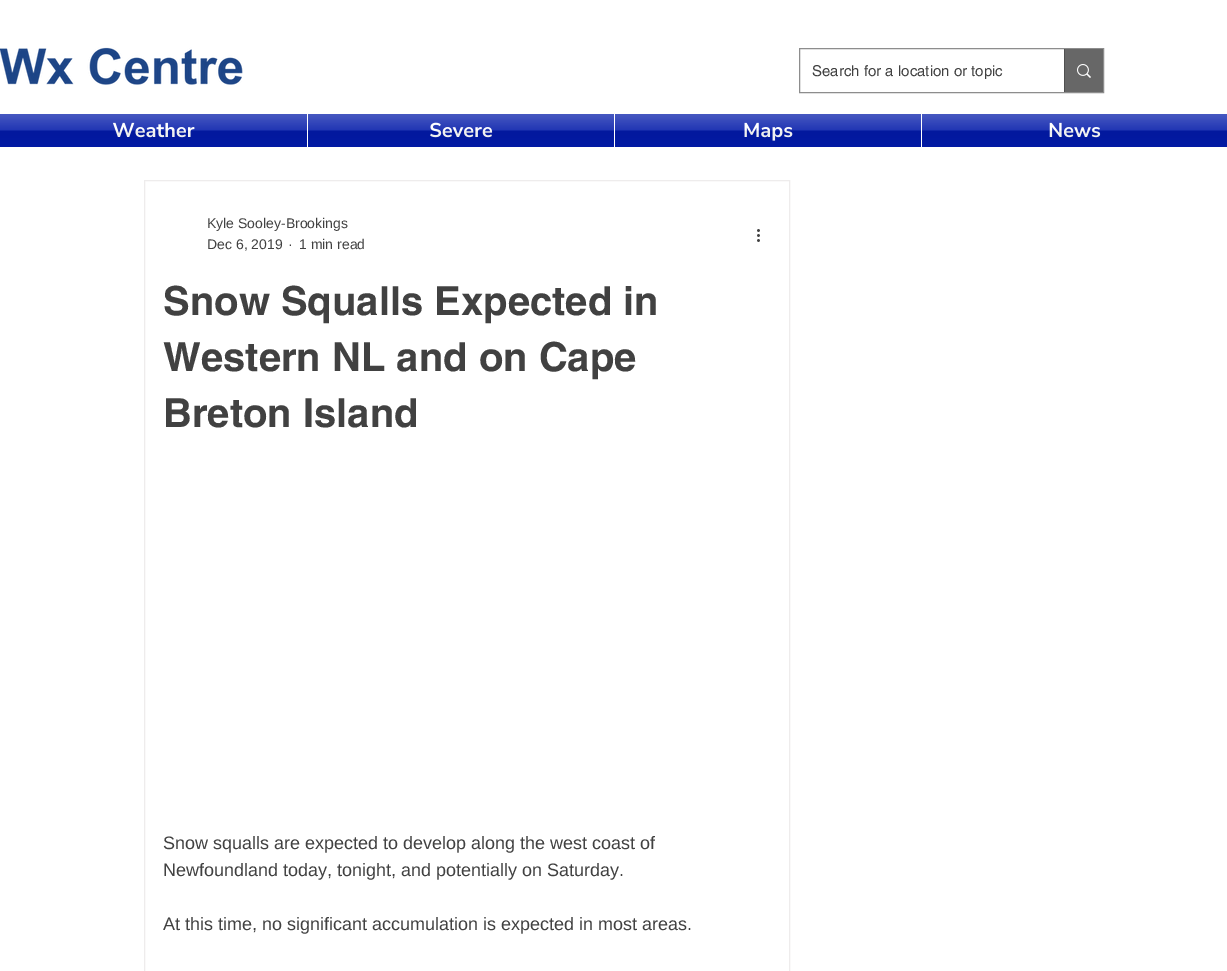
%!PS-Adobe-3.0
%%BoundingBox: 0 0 1227 971
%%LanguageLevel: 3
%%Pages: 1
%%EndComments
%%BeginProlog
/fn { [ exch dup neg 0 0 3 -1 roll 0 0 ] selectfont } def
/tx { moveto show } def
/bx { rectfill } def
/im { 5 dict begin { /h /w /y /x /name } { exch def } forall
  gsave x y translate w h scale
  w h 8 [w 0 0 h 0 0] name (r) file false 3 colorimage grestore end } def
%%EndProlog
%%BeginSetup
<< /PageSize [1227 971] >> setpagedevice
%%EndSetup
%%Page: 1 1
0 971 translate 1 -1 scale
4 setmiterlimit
1 setgray
0 0 1227 971 bx
(image0.raw) 0 47 243 38 im
0.553 setgray
799.5 48.5 304 44 rectstroke
/helvetica-Regular 15 fn
0.255 setgray
(Search for a location or topic) 812 76 tx
0.404 setgray
1065 49 38 43 bx
0.314 setgray
1064 49 1 43 bx
(image1.raw) 1077 64 14 14 im
0.008 0.102 0.663 setrgbcolor
0 114 307 33 bx
/NunitoSans-Bold 20 fn
1 setgray
(Weather) 112 137 tx
(image2.raw) 0 114 307 33 im
0.008 0.102 0.663 setrgbcolor
308 114 306 33 bx
1 setgray
(Severe) 429 137 tx
(image3.raw) 308 114 306 33 im
0.008 0.102 0.663 setrgbcolor
615 114 306 33 bx
1 setgray
(Maps) 743 137 tx
(image4.raw) 615 114 306 33 im
0.008 0.102 0.663 setrgbcolor
922 114 305 33 bx
1 setgray
(News) 1048 137 tx
(image5.raw) 922 114 305 33 im
0.933 0.925 0.925 setrgbcolor
144.5 180.5 645 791 rectstroke
/LiberationSans-Regular 14 fn
0.255 setgray
(Kyle Sooley-Brookings) 207 228 tx
(Dec 6, 2019) 207 249 tx
(·) 288 249 tx
(1 min read) 299 249 tx
(image6.raw) 757 229 3 13 im
/helvetica-Bold 40 fn
(Snow Squalls Expected in) 163 315 tx
(Western NL and on Cape) 163 371 tx
(Breton Island) 163 427 tx
/LiberationSans-Regular 18 fn
(Snow squalls are expected to develop along the west coast of) 163 849 tx
(Newfoundland today, tonight, and potentially on Saturday.) 163 876 tx
(At this time, no significant accumulation is expected in most areas.) 163 930 tx
showpage
%%EOF
